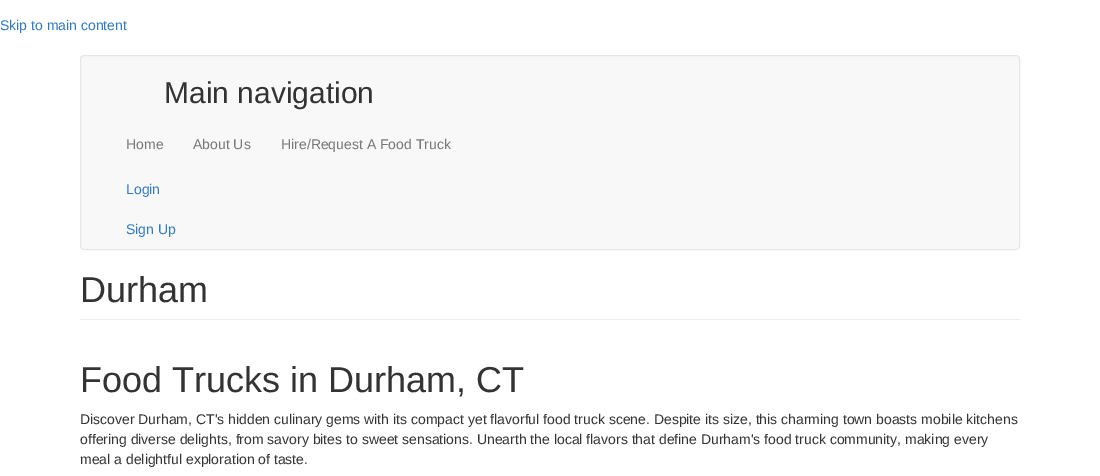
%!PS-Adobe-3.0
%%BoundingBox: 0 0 1100 476
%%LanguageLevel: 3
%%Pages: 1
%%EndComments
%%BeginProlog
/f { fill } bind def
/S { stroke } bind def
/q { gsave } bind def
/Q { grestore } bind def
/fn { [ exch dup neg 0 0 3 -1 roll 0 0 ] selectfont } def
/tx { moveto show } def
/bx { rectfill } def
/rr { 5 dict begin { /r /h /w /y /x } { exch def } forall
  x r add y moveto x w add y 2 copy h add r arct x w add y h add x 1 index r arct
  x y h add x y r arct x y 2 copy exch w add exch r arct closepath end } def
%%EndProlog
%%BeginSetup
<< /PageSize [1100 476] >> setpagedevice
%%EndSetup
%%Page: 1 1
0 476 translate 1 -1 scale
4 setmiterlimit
1 setgray
0 0 1100 476 bx
/LiberationSans-Regular 14 fn
0.2 0.478 0.718 setrgbcolor
(Skip to main content) 0 30 tx
0.973 setgray
80.5 55.5 939 194 3.5 rr q f Q
0.906 setgray
S
/LiberationSans-Regular 30 fn
0.2 setgray
(Main navigation) 164 103 tx
/LiberationSans-Regular 14 fn
0.467 setgray
(Home) 126 149 tx
(About Us) 193 149 tx
(Hire/Request A Food Truck) 281 149 tx
0.2 0.478 0.718 setrgbcolor
(Login) 126 194 tx
(Sign Up) 126 234 tx
0.933 setgray
80 319 940 1 bx
/LiberationSans-Regular 36 fn
0.2 setgray
(Durham) 80 302 tx
(Food Trucks in Durham, CT) 80 392 tx
/LiberationSans-Regular 14 fn
(Discover Durham, CT's hidden culinary gems with its compact yet flavorful food truck scene. Despite its size, this charming town boasts mobile kitchens) 80 424 tx
(offering diverse delights, from savory bites to sweet sensations. Unearth the local flavors that define Durham's food truck community, making every) 80 444 tx
(meal a delightful exploration of taste.) 80 464 tx
showpage
%%EOF
